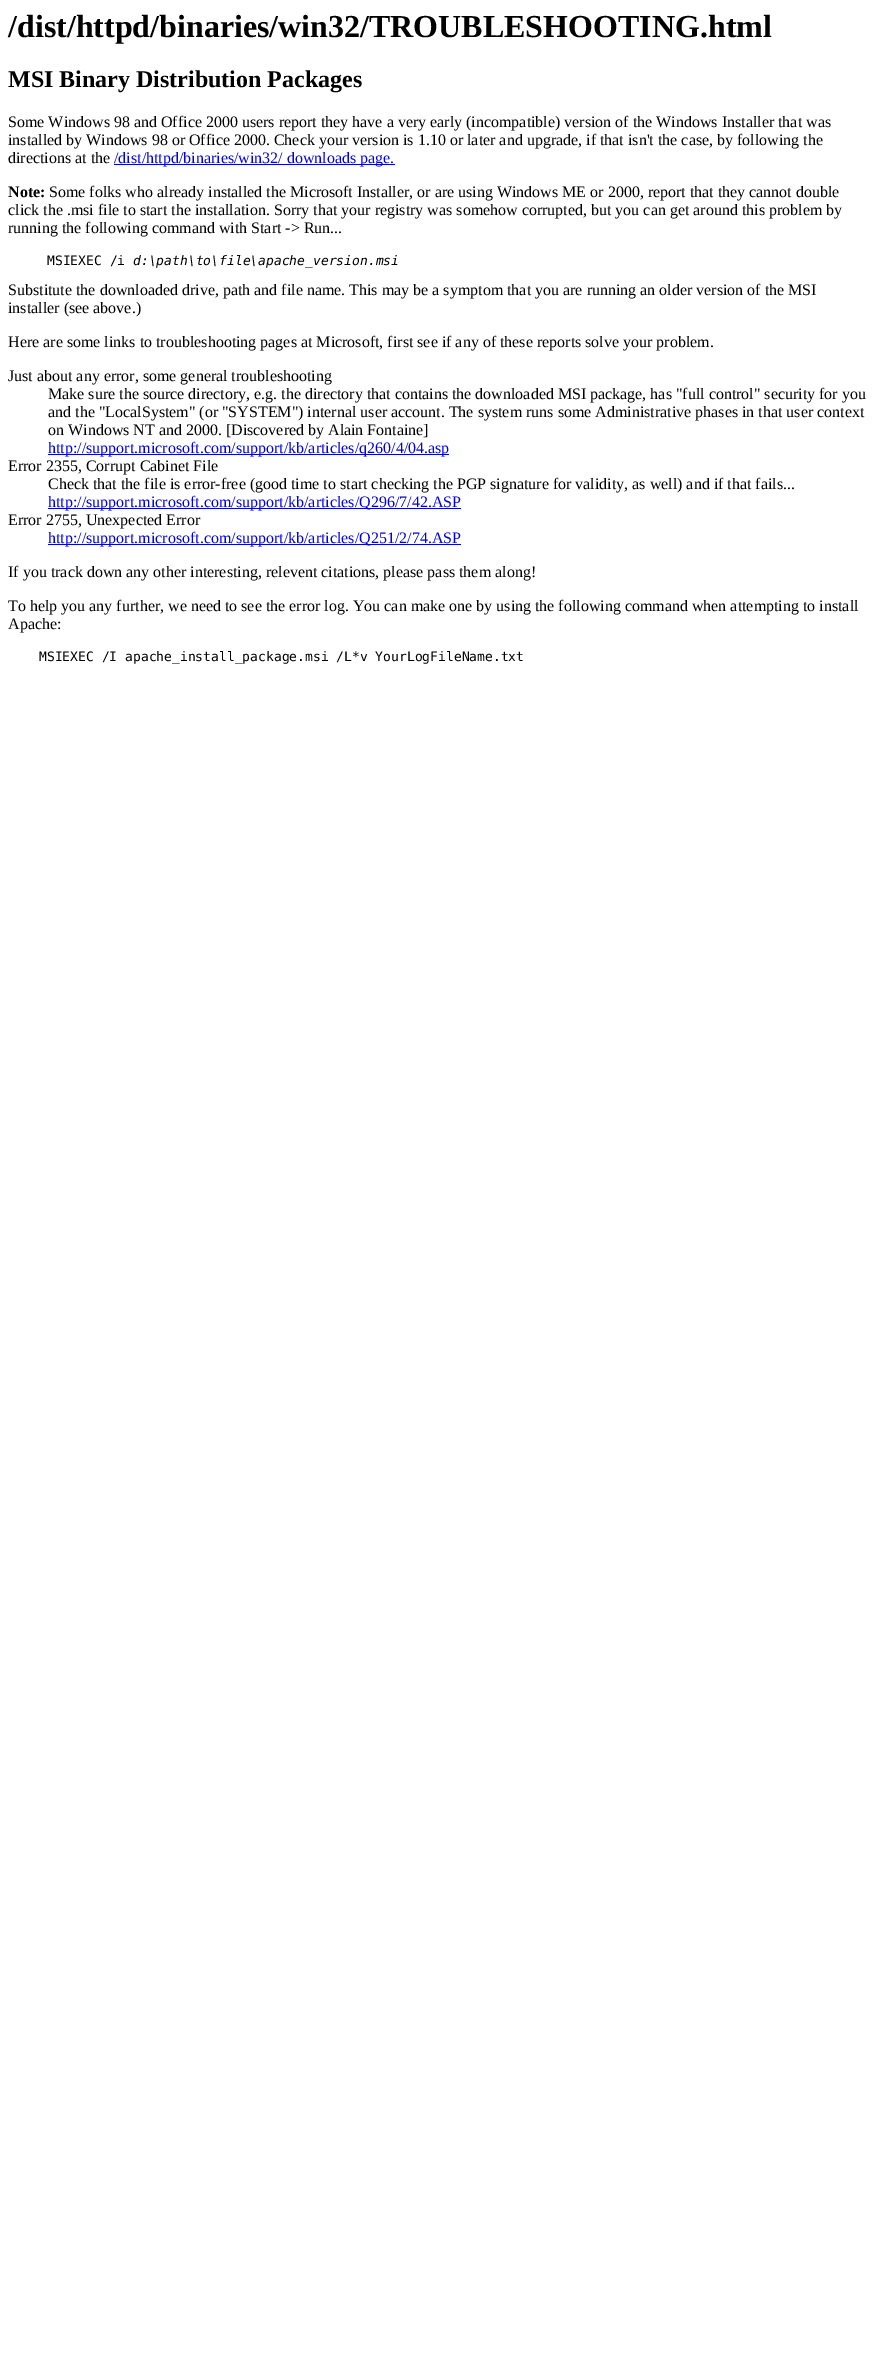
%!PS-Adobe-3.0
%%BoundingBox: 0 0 879 2377
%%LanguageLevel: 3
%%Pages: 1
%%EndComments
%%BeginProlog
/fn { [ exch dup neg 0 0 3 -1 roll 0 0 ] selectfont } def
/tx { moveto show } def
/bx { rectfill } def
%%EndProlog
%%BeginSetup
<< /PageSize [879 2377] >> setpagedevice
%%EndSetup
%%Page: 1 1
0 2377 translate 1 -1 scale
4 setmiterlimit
1 setgray
0 0 879 2377 bx
/LiberationSerif-Bold 32 fn
0 setgray
(/dist/httpd/binaries/win32/TROUBLESHOOTING.html) 8 37 tx
/LiberationSerif-Bold 24 fn
(MSI Binary Distribution Packages) 8 87 tx
/LiberationSerif-Regular 16 fn
(Some Windows 98 and Office 2000 users report they have a very early \(incompatible\) version of the Windows Installer that was) 8 127 tx
(installed by Windows 98 or Office 2000. Check your version is 1.10 or later and upgrade, if that isn't the case, by following the) 8 145 tx
(directions at the) 8 163 tx
0 0 0.933 setrgbcolor
114 164 281 1 bx
(/dist/httpd/binaries/win32/ downloads page.) 114 163 tx
/LiberationSerif-Bold 16 fn
0 setgray
(Note:) 8 197 tx
/LiberationSerif-Regular 16 fn
(Some folks who already installed the Microsoft Installer, or are using Windows ME or 2000, report that they cannot double) 49 197 tx
(click the .msi file to start the installation. Sorry that your registry was somehow corrupted, but you can get around this problem by) 8 215 tx
(running the following command with Start -> Run...) 8 233 tx
/DejaVuSansMono-Regular 13 fn
(MSIEXEC /i) 47 265 tx
/DejaVuSansMono-Italic 13 fn
(d:\\path\\to\\file\\apache_version.msi) 133 265 tx
/LiberationSerif-Regular 16 fn
(Substitute the downloaded drive, path and file name. This may be a symptom that you are running an older version of the MSI) 8 295 tx
(installer \(see above.\)) 8 313 tx
(Here are some links to troubleshooting pages at Microsoft, first see if any of these reports solve your problem.) 8 347 tx
(Just about any error, some general troubleshooting) 8 381 tx
(Make sure the source directory, e.g. the directory that contains the downloaded MSI package, has "full control" security for you) 48 399 tx
(and the "LocalSystem" \(or "SYSTEM"\) internal user account. The system runs some Administrative phases in that user context) 48 417 tx
(on Windows NT and 2000. [Discovered by Alain Fontaine]) 48 435 tx
0 0 0.933 setrgbcolor
48 454 401 1 bx
(http://support.microsoft.com/support/kb/articles/q260/4/04.asp) 48 453 tx
0 setgray
(Error 2355, Corrupt Cabinet File) 8 471 tx
(Check that the file is error-free \(good time to start checking the PGP signature for validity, as well\) and if that fails...) 48 489 tx
0 0 0.933 setrgbcolor
48 508 413 1 bx
(http://support.microsoft.com/support/kb/articles/Q296/7/42.ASP) 48 507 tx
0 setgray
(Error 2755, Unexpected Error) 8 525 tx
0 0 0.933 setrgbcolor
48 544 413 1 bx
(http://support.microsoft.com/support/kb/articles/Q251/2/74.ASP) 48 543 tx
0 setgray
(If you track down any other interesting, relevent citations, please pass them along!) 8 577 tx
(To help you any further, we need to see the error log. You can make one by using the following command when attempting to install) 8 611 tx
(Apache:) 8 629 tx
/DejaVuSansMono-Regular 13 fn
(MSIEXEC /I apache_install_package.msi /L*v YourLogFileName.txt) 39 661 tx
showpage
%%EOF
